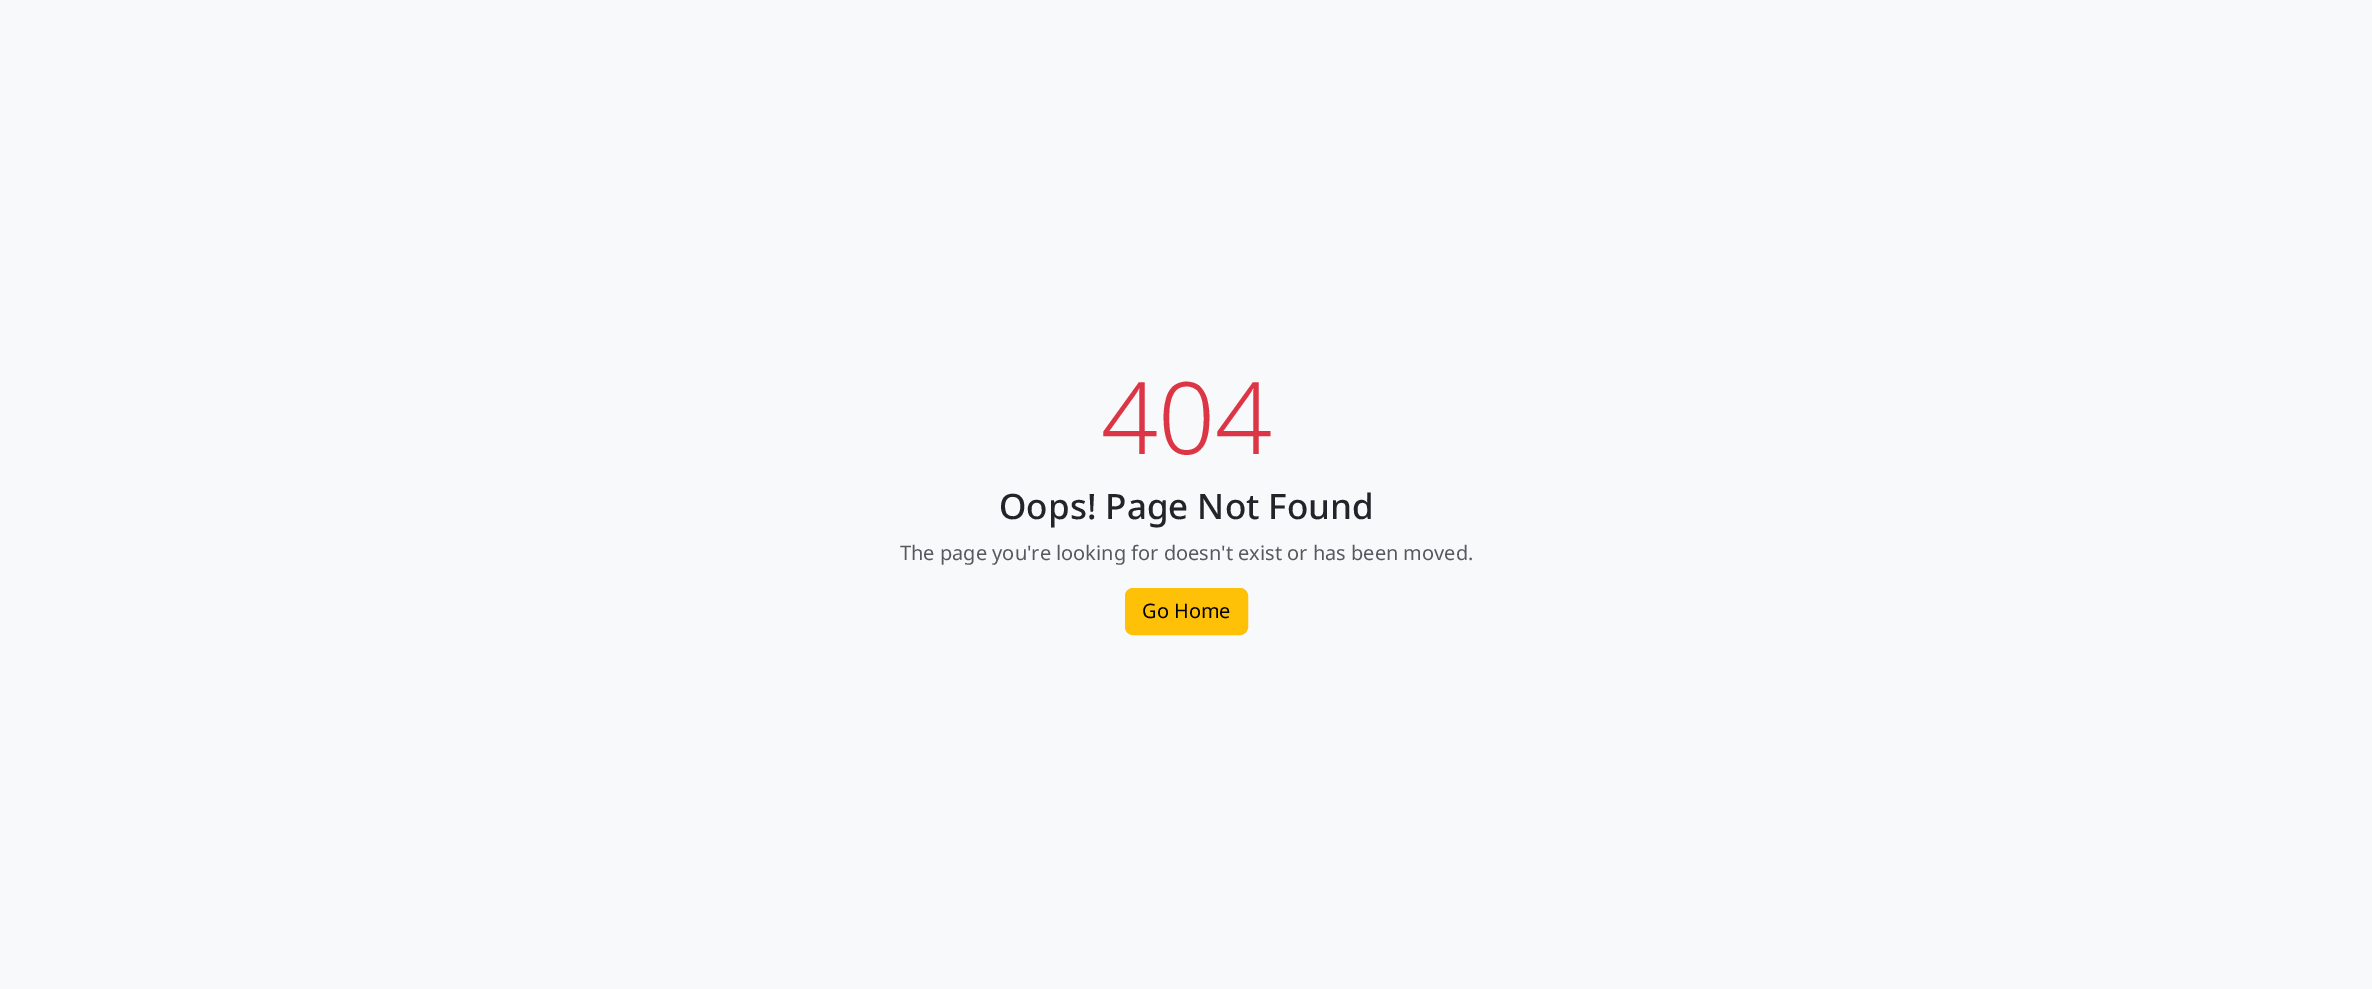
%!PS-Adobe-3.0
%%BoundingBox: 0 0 2372 989
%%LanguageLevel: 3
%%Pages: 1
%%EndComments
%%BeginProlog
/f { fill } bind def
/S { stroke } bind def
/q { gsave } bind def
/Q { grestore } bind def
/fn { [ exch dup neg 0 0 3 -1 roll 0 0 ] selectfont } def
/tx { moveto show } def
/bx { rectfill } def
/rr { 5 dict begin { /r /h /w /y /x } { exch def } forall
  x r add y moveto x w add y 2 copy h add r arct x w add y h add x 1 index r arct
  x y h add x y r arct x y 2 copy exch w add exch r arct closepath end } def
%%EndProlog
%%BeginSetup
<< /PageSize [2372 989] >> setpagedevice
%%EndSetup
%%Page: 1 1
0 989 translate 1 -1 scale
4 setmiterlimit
0.973 0.976 0.98 setrgbcolor
0 0 2372 989 bx
/NotoSans-Light 100 fn
0.863 0.208 0.271 setrgbcolor
(404) 1101 454 tx
/NotoSans-Medium 35 fn
0.129 0.145 0.161 setrgbcolor
(Oops! Page Not Found) 999 519 tx
/NotoSans-Regular 20 fn
0.341 0.353 0.365 setrgbcolor
(The page you're looking for doesn't exist or has been moved.) 900 560 tx
1 0.757 0.027 setrgbcolor
1125.5 588.5 122 46 7.5 rr q f Q
S
0 setgray
(Go Home) 1142 618 tx
showpage
%%EOF
